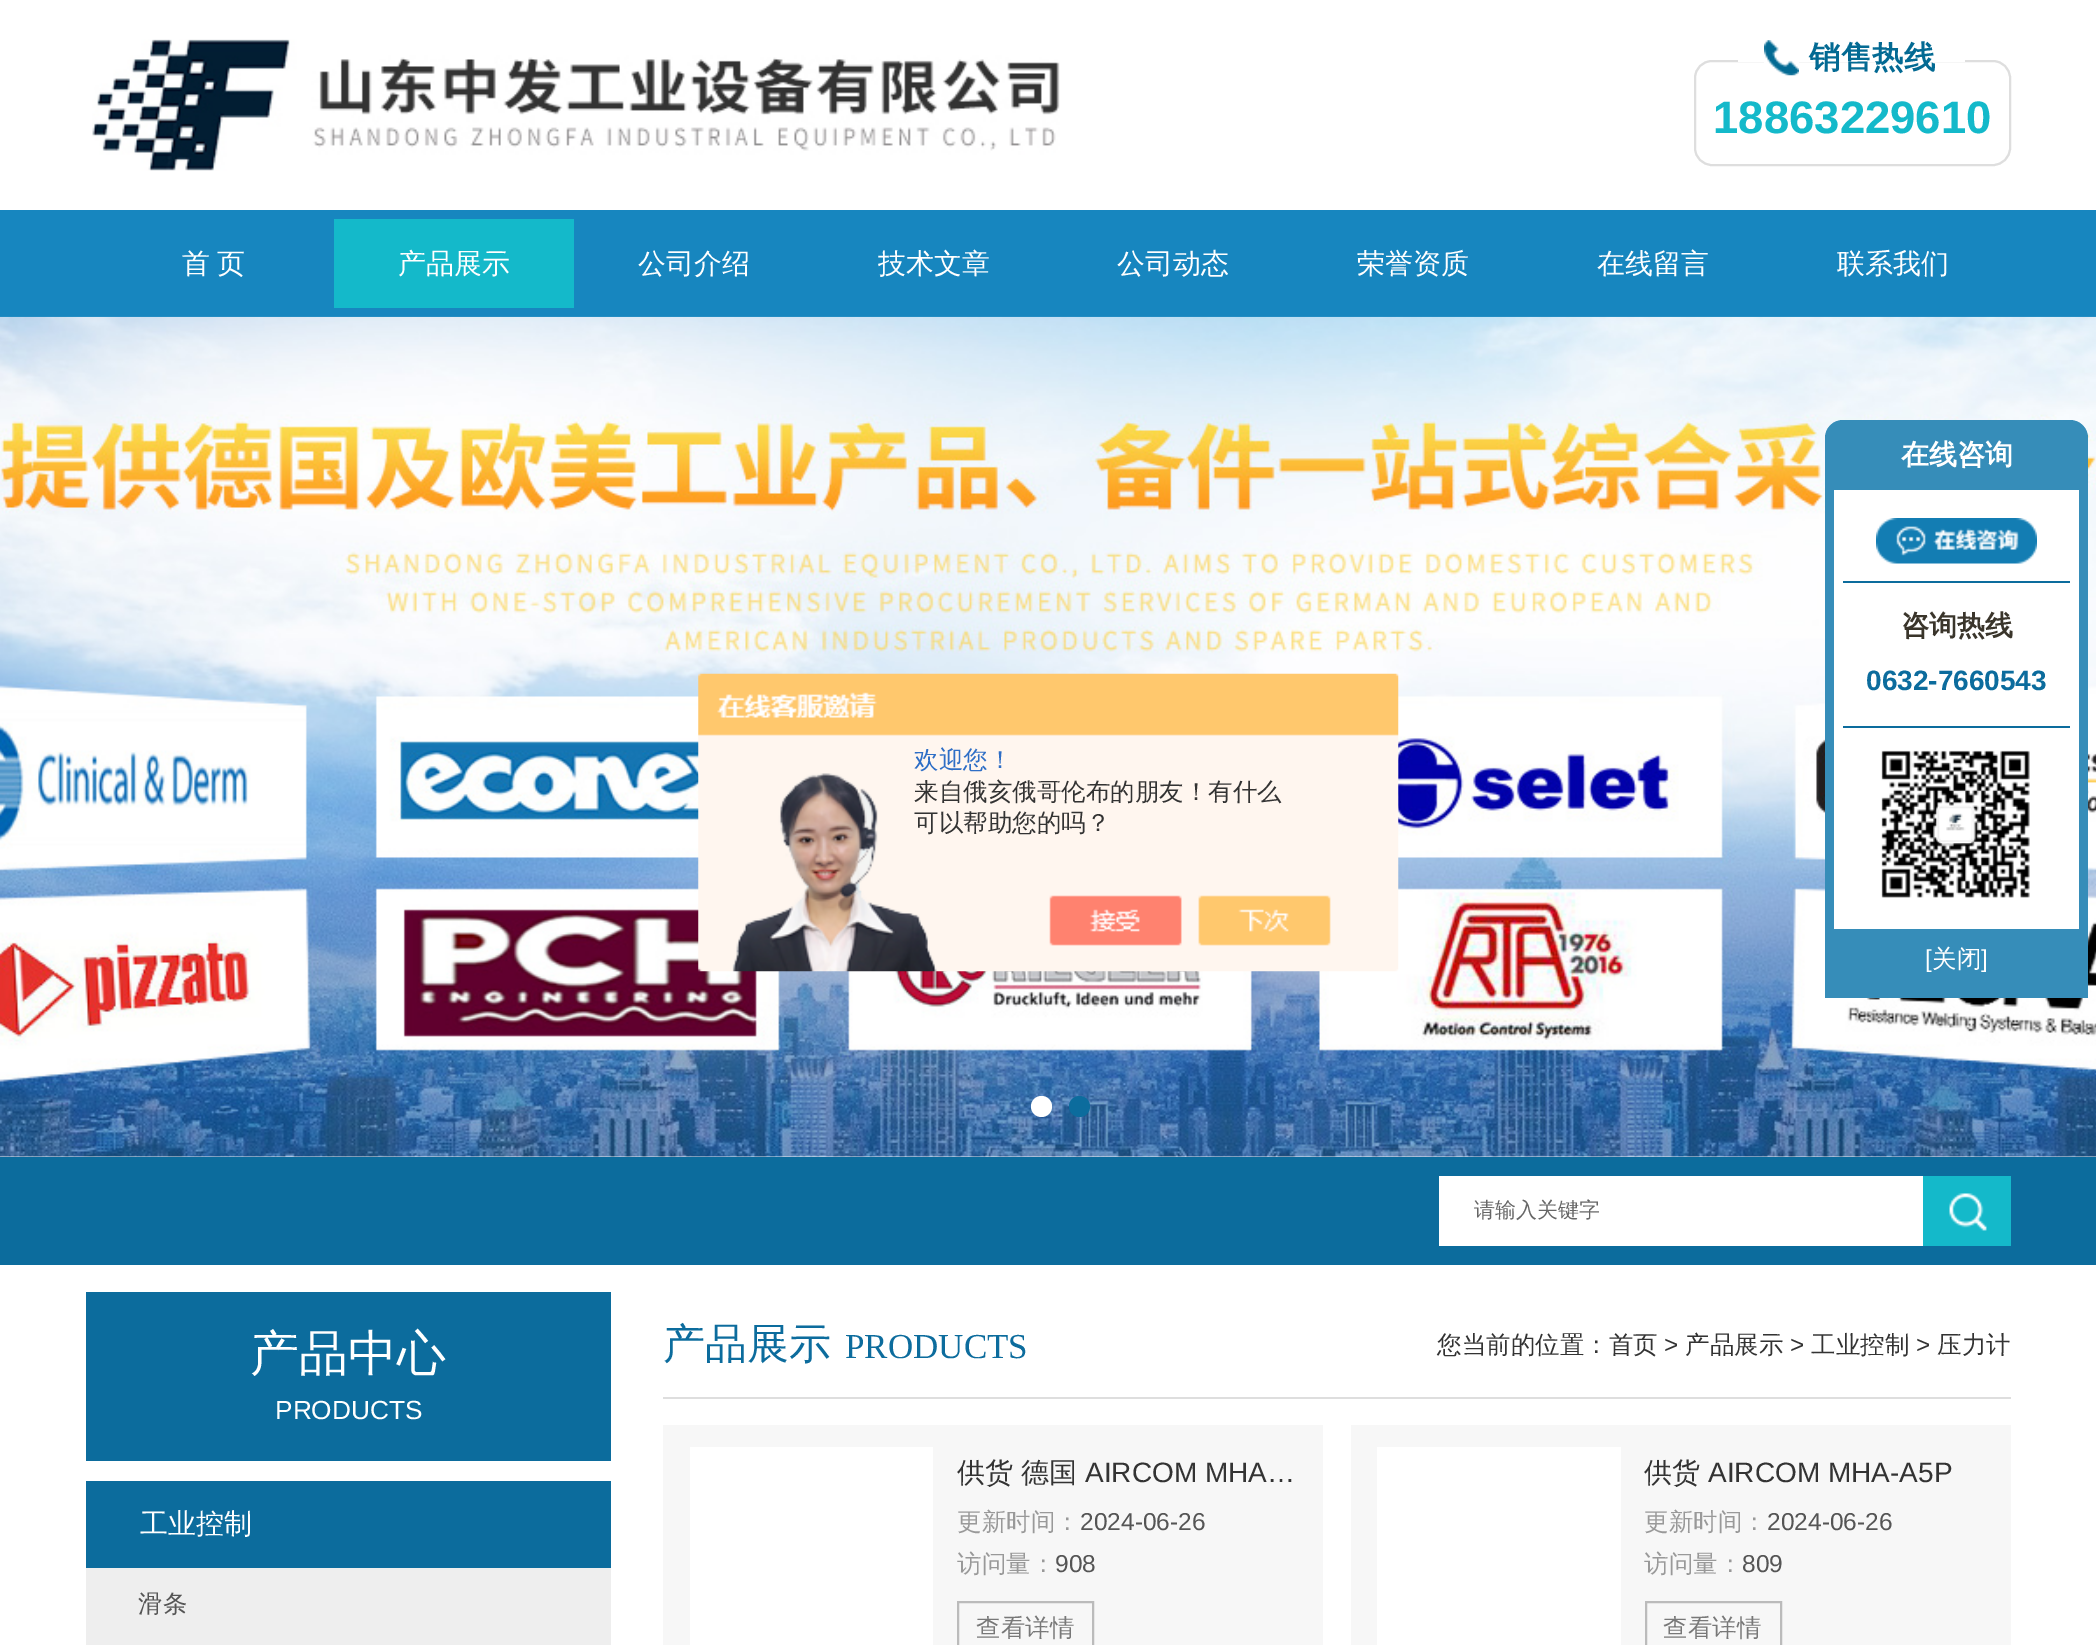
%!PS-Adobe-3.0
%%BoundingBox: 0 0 2096 1645
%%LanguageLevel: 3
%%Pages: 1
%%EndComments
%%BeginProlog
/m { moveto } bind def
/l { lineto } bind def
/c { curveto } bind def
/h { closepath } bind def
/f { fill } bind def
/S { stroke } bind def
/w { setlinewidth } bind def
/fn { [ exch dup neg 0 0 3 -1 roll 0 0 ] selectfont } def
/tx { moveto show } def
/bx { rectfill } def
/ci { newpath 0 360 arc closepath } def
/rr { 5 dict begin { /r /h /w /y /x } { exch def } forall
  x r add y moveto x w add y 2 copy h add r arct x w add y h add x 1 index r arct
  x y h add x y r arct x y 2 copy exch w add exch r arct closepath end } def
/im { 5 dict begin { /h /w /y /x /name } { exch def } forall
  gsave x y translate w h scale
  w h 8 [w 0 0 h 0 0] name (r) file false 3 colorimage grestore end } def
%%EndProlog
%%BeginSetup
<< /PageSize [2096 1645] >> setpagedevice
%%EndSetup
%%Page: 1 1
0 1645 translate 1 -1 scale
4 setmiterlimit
1 setgray
0 0 2096 1645 bx
(image0.raw) 92 39 968 132 im
0.871 setgray
2 w
1695 61 315 104 17 rr S
1 setgray
1738 60 227 2 bx
(image1.raw) 1764 40 35 36 im
/WenQuanYiZenHei-Bold 31.5 fn
0.012 0.416 0.576 setrgbcolor
(销售热线) 1809 68 tx
/LiberationSans-Bold 45.5 fn
0.078 0.725 0.792 setrgbcolor
(18863229610) 1713 133 tx
0.09 0.525 0.749 setrgbcolor
0 210 2096 107 bx
/WenQuanYiZenHei-Medium 28 fn
1 setgray
182 273 m -1 0 32 (首 页) widthshow
0.078 0.725 0.792 setrgbcolor
334 219 240 89 bx
1 setgray
(产品展示) 398 273 tx
(公司介绍) 638 273 tx
(技术文章) 878 273 tx
(公司动态) 1117 273 tx
(荣誉资质) 1357 273 tx
(在线留言) 1597 273 tx
(联系我们) 1837 273 tx
(image2.raw) 0 316 2096 841 im
1041.5 1106.5 10.5 ci f
0.047 0.424 0.616 setrgbcolor
1079.5 1106.5 10.5 ci f
0.212 0.553 0.725 setrgbcolor
1843 420 m 2070 420 l 2080 420 2088 428 2088 438 c 2088 998 l 1825 998 l 1825 438 l 1825 428 1833 420 1843 420 c h f
/WenQuanYiZenHei-Bold 28 fn
1 setgray
(在线咨询) 1901 464 tx
1834 490 245 439 bx
(image3.raw) 1876 518 161 46 im
0.047 0.424 0.616 setrgbcolor
1843 581 227 2 bx
0.227 0.208 0.169 setrgbcolor
(咨询热线) 1901 635 tx
/LiberationSans-Bold 28 fn
0.047 0.424 0.616 setrgbcolor
(0632-7660543) 1866 690 tx
1843 726 227 2 bx
(image4.raw) 1881 750 149 148 im
/LiberationSans-Regular 24.5 fn
1 setgray
([) 1925 967 tx
/WenQuanYiZenHei-Medium 24.5 fn
(关闭) 1932 967 tx
/LiberationSans-Regular 24.5 fn
(]) 1981 967 tx
0.047 0.424 0.616 setrgbcolor
0 1157 2096 108 bx
1 setgray
1439 1176 484 70 bx
/WenQuanYiZenHei-Medium 21 fn
0.4 setgray
(请输入关键字) 1474 1217 tx
0.078 0.725 0.792 setrgbcolor
1923 1176 88 70 bx
(image5.raw) 1949 1193 38 38 im
0.047 0.424 0.616 setrgbcolor
86 1292 525 169 bx
/WenQuanYiZenHei-Medium 49 fn
1 setgray
(产品中心) 250 1370 tx
/LiberationSans-Regular 26.25 fn
(PRODUCTS) 275 1419 tx
0.047 0.424 0.616 setrgbcolor
86 1481 525 87 bx
/WenQuanYiZenHei-Medium 28 fn
1 setgray
(工业控制) 140 1533 tx
0.933 setgray
86 1568 525 77 bx
/WenQuanYiZenHei-Medium 24.5 fn
0.333 setgray
(滑条) 138 1612 tx
0.871 setgray
663 1397 1348 2 bx
/WenQuanYiZenHei-Medium 42 fn
0.047 0.424 0.616 setrgbcolor
(产品展示) 663 1358 tx
/LiberationSerif-Regular 35 fn
(PRODUCTS) 845 1358 tx
/WenQuanYiZenHei-Medium 24.5 fn
0.2 setgray
(您当前的位置：首页) 1437 1353 tx
/LiberationSans-Regular 24.5 fn
(>) 1664 1353 tx
/WenQuanYiZenHei-Medium 24.5 fn
(产品展示) 1685 1353 tx
/LiberationSans-Regular 24.5 fn
(>) 1790 1353 tx
/WenQuanYiZenHei-Medium 24.5 fn
(工业控制) 1811 1353 tx
/LiberationSans-Regular 24.5 fn
(>) 1916 1353 tx
/WenQuanYiZenHei-Medium 24.5 fn
(压力计) 1937 1353 tx
0.969 setgray
663 1425 660 220 bx
1 setgray
690 1447 243 198 bx
/WenQuanYiZenHei-Medium 28 fn
0.2 setgray
(供货 德国) 957 1482 tx
/LiberationSans-Regular 28 fn
(AIRCOM MHA…) 1085 1482 tx
/WenQuanYiZenHei-Medium 24.5 fn
0.6 setgray
(更新时间：) 957 1530 tx
/LiberationSans-Regular 24.5 fn
0.333 setgray
(2024-06-26) 1080 1530 tx
/WenQuanYiZenHei-Medium 24.5 fn
0.6 setgray
(访问量：) 957 1572 tx
/LiberationSans-Regular 24.5 fn
0.333 setgray
(908) 1055 1572 tx
0.733 setgray
958 1602 135 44 rectstroke
/WenQuanYiZenHei-Medium 24.5 fn
0.471 setgray
(查看详情) 976 1636 tx
0.969 setgray
1351 1425 660 220 bx
1 setgray
1377 1447 244 198 bx
/WenQuanYiZenHei-Medium 28 fn
0.2 setgray
(供货) 1644 1482 tx
/LiberationSans-Regular 28 fn
(AIRCOM MHA-A5P) 1708 1482 tx
/WenQuanYiZenHei-Medium 24.5 fn
0.6 setgray
(更新时间：) 1644 1530 tx
/LiberationSans-Regular 24.5 fn
0.333 setgray
(2024-06-26) 1767 1530 tx
/WenQuanYiZenHei-Medium 24.5 fn
0.6 setgray
(访问量：) 1644 1572 tx
/LiberationSans-Regular 24.5 fn
0.333 setgray
(809) 1742 1572 tx
0.733 setgray
1646 1602 135 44 rectstroke
/WenQuanYiZenHei-Medium 24.5 fn
0.471 setgray
(查看详情) 1663 1636 tx
(image6.raw) 698 673 701 299 im
0.18 0.431 0.776 setrgbcolor
(欢迎您！) 914 768 tx
0.2 setgray
(来自俄亥俄哥伦布的朋友！有什么) 914 800 tx
(可以帮助您的吗？) 914 831 tx
showpage
%%EOF
